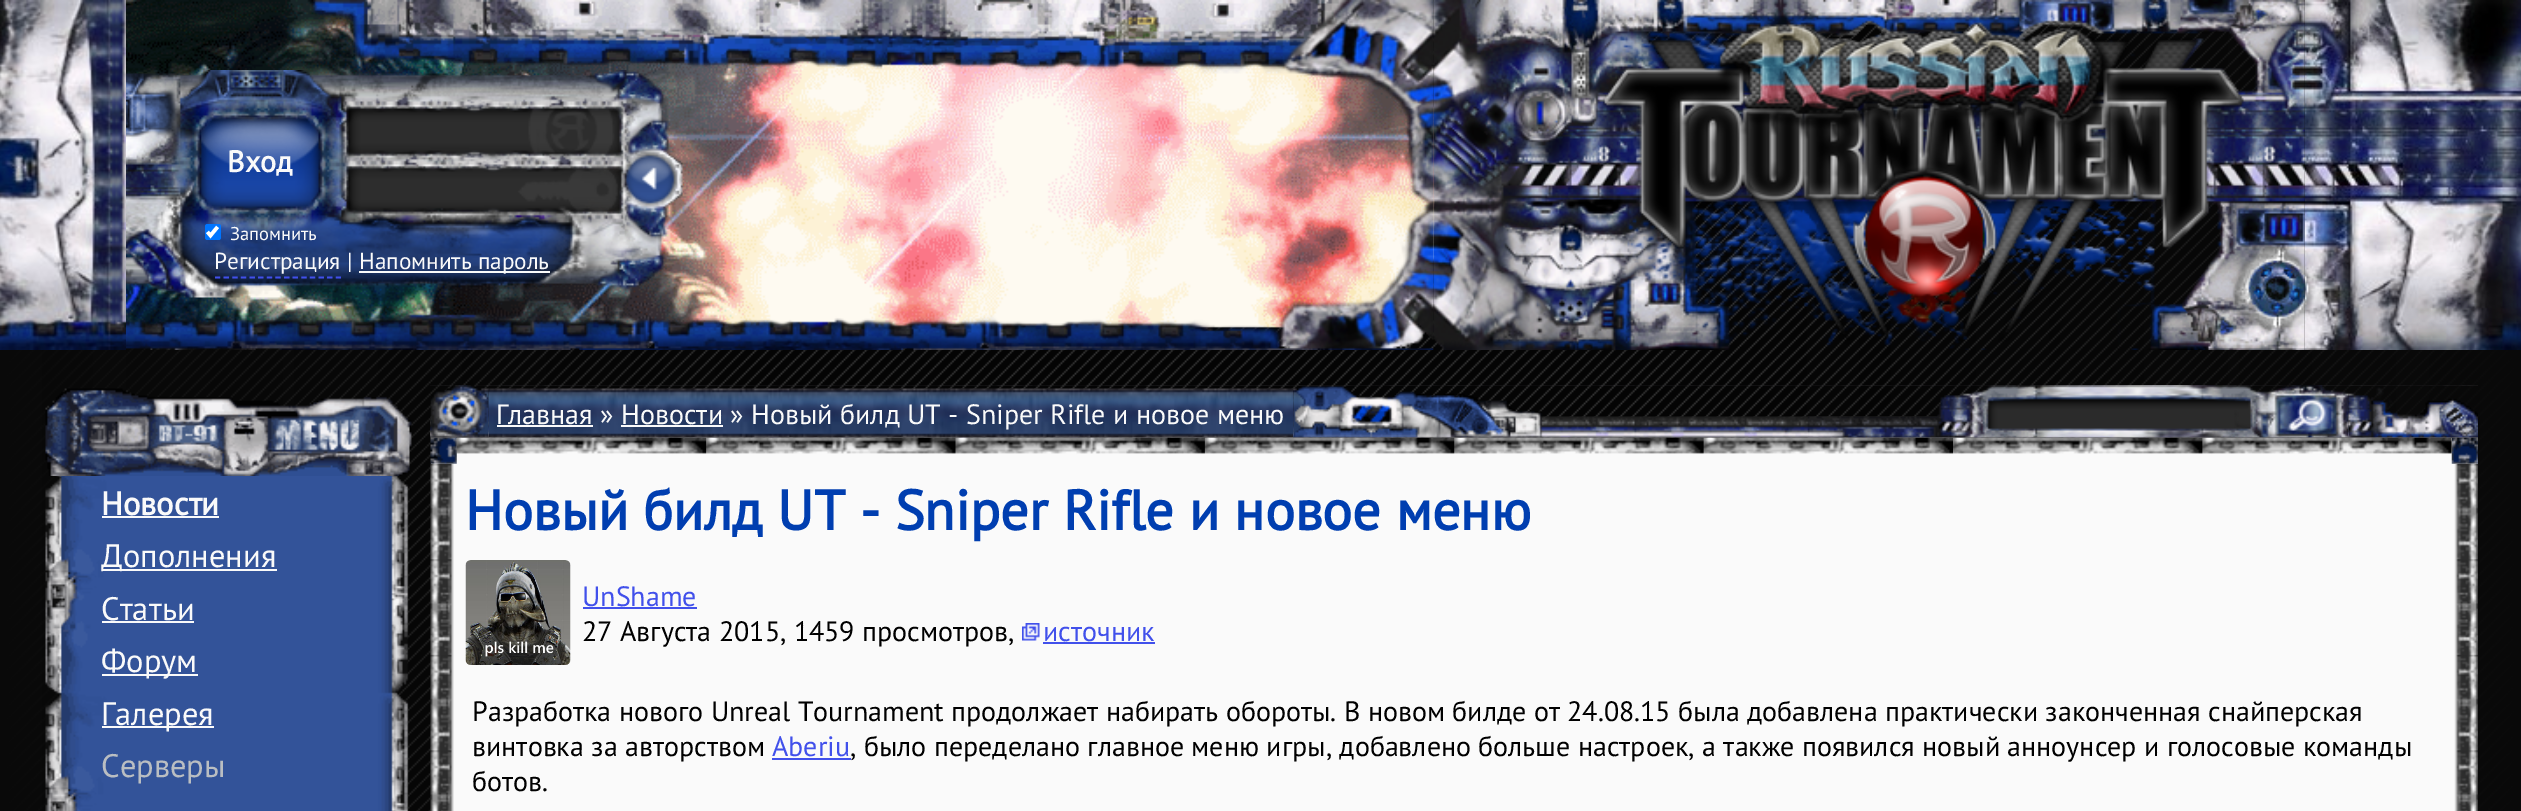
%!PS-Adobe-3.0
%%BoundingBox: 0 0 2521 811
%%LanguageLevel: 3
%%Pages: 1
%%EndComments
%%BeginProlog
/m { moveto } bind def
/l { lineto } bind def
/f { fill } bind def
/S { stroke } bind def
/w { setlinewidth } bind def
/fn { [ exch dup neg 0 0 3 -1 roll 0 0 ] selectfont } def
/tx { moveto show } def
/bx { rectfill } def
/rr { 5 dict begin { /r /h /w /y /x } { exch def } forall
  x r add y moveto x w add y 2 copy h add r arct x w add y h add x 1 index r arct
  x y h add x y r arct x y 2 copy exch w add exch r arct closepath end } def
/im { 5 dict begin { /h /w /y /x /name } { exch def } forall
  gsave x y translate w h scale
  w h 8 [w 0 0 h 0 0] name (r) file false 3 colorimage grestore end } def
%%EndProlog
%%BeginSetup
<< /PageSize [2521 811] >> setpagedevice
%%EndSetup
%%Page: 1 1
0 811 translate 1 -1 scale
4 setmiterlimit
1 setgray
0 0 2521 811 bx
(image0.raw) 0 0 2521 811 im
(image2.raw) 122 0 1313 328 im
(image1.raw) 0 0 126 350 im
(image3.raw) 126 0 1308 350 im
(image5.raw) 2304 0 217 350 im
(image4.raw) 1433 0 872 350 im
(image6.raw) 126 70 557 228 im
(image7.raw) 201 117 118 53 im
/PTSans-Bold 30 fn
0.98 setgray
(Вход) 227 172 tx
0 0.459 1 setrgbcolor
205 224 16 16 2.5 rr f
1 setgray
3.6 w
207.5 232 m 210.5 235.5 l 217.5 227 l S
/PTSans-Regular 18.5 fn
0.98 setgray
(Запомнить) 230 240 tx
/PTSans-Regular 23.25 fn
(Регистрация |) 214 269 tx
0.255 0.314 0.922 setrgbcolor
1.8 w
[5.25 3.38] 0 setdash
215 277.5 m 341 277.5 l S
0.98 setgray
359 271 191 2 bx
(Напомнить пароль) 359 269 tx
(image8.raw) 628 156 44 34 im
(image9.raw) 45 476 364 335 im
(image10.raw) 45 388 367 88 im
/PTSans-Bold 32.5 fn
(Новости) 101 515 tx
102 516 117 2 bx
102 569 175 2 bx
/PTSans-Regular 32.5 fn
(Дополнения) 101 567 tx
(Статьи) 101 620 tx
102 621 92 2 bx
102 674 96 2 bx
(Форум) 101 672 tx
102 726 112 2 bx
(Галерея) 101 725 tx
0.729 0.745 0.761 setrgbcolor
(Серверы) 101 777 tx
0.98 setgray
431 438 2047 373 bx
(image17.raw) 430 437 2048 374 im
(image11.raw) 430 385 2048 53 im
(image12.raw) 488 388 806 50 im
(image13.raw) 430 385 59 53 im
497 425 96 2 bx
/PTSans-Regular 28 fn
(Главная » Новости » Новый билд UT - Sniper Rifle и новое меню) 496 424 tx
621 425 102 2 bx
(image14.raw) 1293 386 250 52 im
(image15.raw) 1807 385 542 53 im
(image16.raw) 2348 387 130 51 im
/PTSans-Bold 56 fn
0 0.243 0.69 setrgbcolor
(Новый билд UT - Sniper Rifle и новое меню) 465 530 tx
(image18.raw) 465 560 106 105 im
/PTSans-Regular 28 fn
0.255 0.314 0.922 setrgbcolor
(UnShame) 582 606 tx
583 607 114 2 bx
0 setgray
(27 Августа 2015, 1459 просмотров,) 582 641 tx
(image19.raw) 1022 623 18 18 im
0.255 0.314 0.922 setrgbcolor
(источник) 1043 641 tx
1043 642 112 2 bx
0 setgray
(Разработка нового Unreal Tournament продолжает набирать обороты. В новом билде от 24.08.15 была добавлена практически законченная снайперская) 472 721 tx
(винтовка за авторством) 472 756 tx
0.255 0.314 0.922 setrgbcolor
(Aberiu) 772 756 tx
772 758 79 2 bx
0 setgray
(, было переделано главное меню игры, добавлено больше настроек, а также появился новый анноунсер и голосовые команды) 850 756 tx
(ботов.) 472 791 tx
showpage
%%EOF
